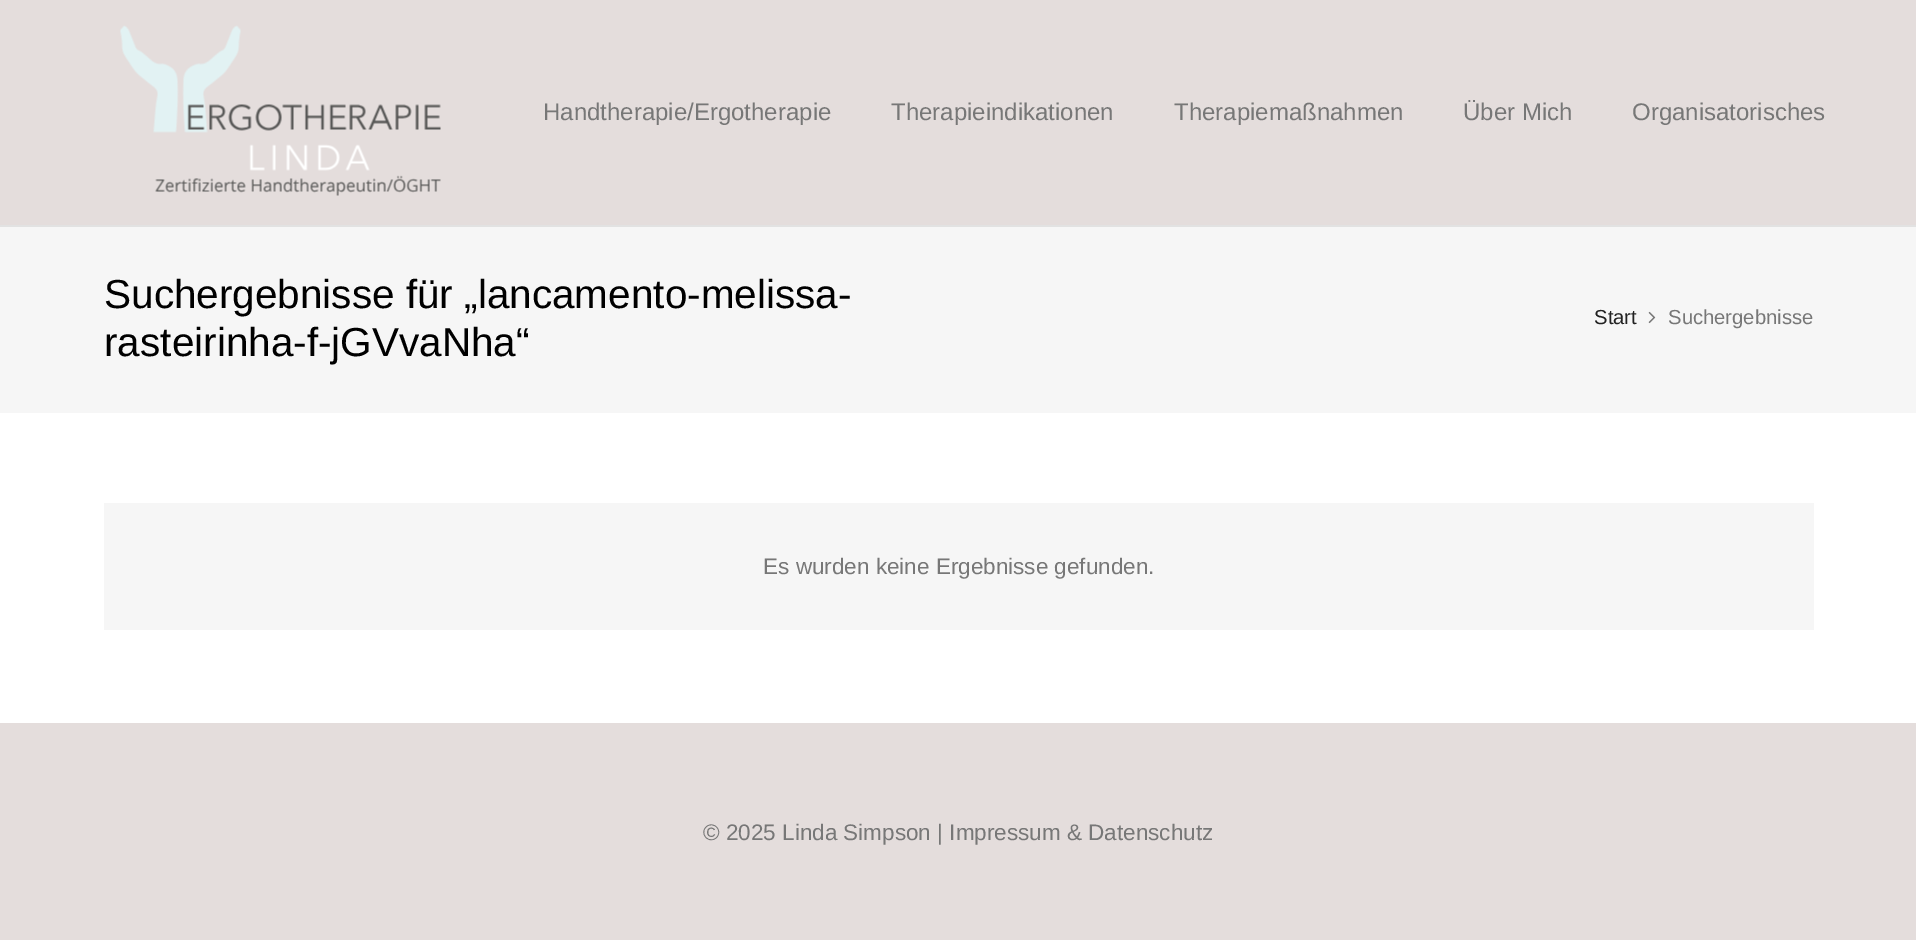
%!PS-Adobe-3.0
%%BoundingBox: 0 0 1916 940
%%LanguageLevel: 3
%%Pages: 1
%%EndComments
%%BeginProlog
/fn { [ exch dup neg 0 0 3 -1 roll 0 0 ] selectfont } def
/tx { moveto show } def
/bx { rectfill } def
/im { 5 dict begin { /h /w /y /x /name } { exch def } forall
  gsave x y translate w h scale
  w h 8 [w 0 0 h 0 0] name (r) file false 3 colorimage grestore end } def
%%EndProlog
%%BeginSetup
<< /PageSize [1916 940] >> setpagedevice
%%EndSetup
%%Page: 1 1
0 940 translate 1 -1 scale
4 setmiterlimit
1 setgray
0 0 1916 940 bx
0.886 setgray
0 225 1916 2 bx
0.894 0.867 0.863 setrgbcolor
0 0 1916 225 bx
(image0.raw) 120 25 321 171 im
/LiberationSans-Regular 24 fn
0.467 setgray
(Handtherapie/Ergotherapie) 543 120 tx
(Therapieindikationen) 891 120 tx
(Therapiemaßnahmen) 1174 120 tx
(Über Mich) 1463 120 tx
(Organisatorisches) 1632 120 tx
0.965 setgray
0 227 1916 186 bx
/LiberationSans-Regular 40.5 fn
0 setgray
(Suchergebnisse für „lancamento-melissa-) 104 308 tx
(rasteirinha-f-jGVvaNha“) 104 356 tx
/LiberationSans-Regular 20.25 fn
0.133 setgray
(Start) 1594 324 tx
(image1.raw) 1648 311 8 13 im
0.467 setgray
(Suchergebnisse) 1668 324 tx
0.965 setgray
104 503 1710 127 bx
/LiberationSans-Regular 22.5 fn
0.467 setgray
(Es wurden keine Ergebnisse gefunden.) 763 574 tx
0.894 0.867 0.863 setrgbcolor
0 723 1916 217 bx
0.467 setgray
(© 2025 Linda Simpson | Impressum & Datenschutz) 703 840 tx
showpage
%%EOF
